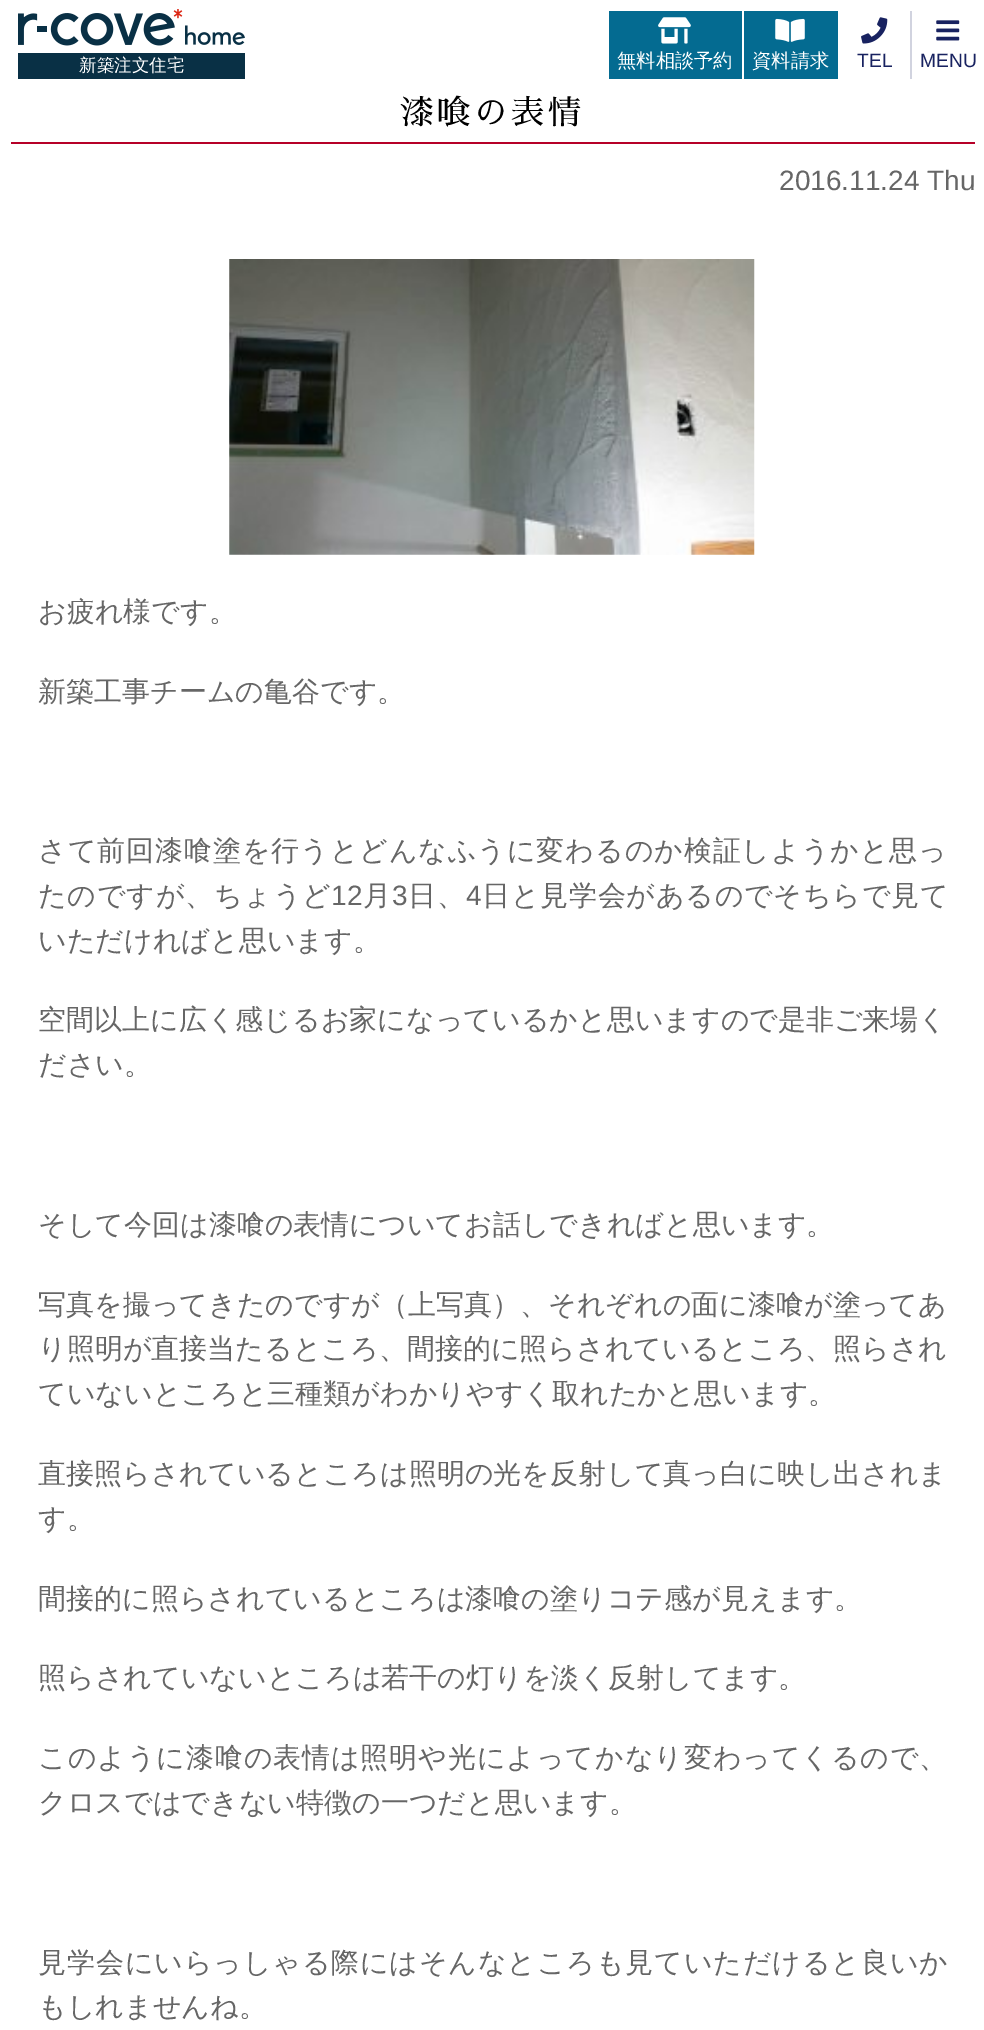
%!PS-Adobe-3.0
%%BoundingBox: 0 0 984 2030
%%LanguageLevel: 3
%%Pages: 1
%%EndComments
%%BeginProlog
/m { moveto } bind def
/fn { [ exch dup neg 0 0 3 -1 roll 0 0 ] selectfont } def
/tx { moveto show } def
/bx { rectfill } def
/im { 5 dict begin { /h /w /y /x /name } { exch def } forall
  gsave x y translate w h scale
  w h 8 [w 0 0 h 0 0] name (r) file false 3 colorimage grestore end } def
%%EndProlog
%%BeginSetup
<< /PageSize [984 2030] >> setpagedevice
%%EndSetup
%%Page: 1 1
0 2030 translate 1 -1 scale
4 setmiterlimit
1 setgray
0 0 984 2030 bx
(image0.raw) 18 9 227 37 im
0.035 0.188 0.271 setrgbcolor
18 53 227 26 bx
/WenQuanYiZenHei-Medium 17.5 fn
1 setgray
(新築注文住宅) 79 71 tx
0.016 0.42 0.569 setrgbcolor
609 11 133 68 bx
(image1.raw) 658 17 33 27 im
/WenQuanYiZenHei-Medium 19.25 fn
1 setgray
(無料相談予約) 617 67 tx
0.016 0.42 0.569 setrgbcolor
744 11 94 68 bx
(image2.raw) 775 18 30 24 im
1 setgray
(資料請求) 752 67 tx
(image3.raw) 861 17 27 27 im
/LiberationSans-Regular 19.25 fn
0.094 0.133 0.376 setrgbcolor
(TEL) 857 67 tx
0.82 0.827 0.875 setrgbcolor
910 11 2 68 bx
(image4.raw) 936 20 24 21 im
0.094 0.133 0.376 setrgbcolor
(MENU) 920 67 tx
0.714 0 0.157 setrgbcolor
11 142 964 2 bx
/SawarabiMincho-Regular 33.5 fn
0 setgray
400 124 m 3.5 0 (漆喰の表情) ashow
/LiberationSans-Regular 28 fn
0.4 setgray
(2016.11.24 Thu) 779 190 tx
(image5.raw) 229 259 526 296 im
/WenQuanYiZenHei-Medium 28 fn
(お疲れ様です。) 38 621 tx
(新築工事チームの亀谷です。) 38 701 tx
38 860 m 0.9 0 (さて前回漆喰塗を行うとどんなふうに変わるのか検証しようかと思っ) ashow
38 905 m 0.75 0 (たのですが、ちょうど) ashow
/LiberationSans-Regular 28 fn
331 905 m 0.75 0 (12) ashow
/WenQuanYiZenHei-Medium 28 fn
363 905 m 0.75 0 (月) ashow
/LiberationSans-Regular 28 fn
392 905 m 0.75 0 (3) ashow
/WenQuanYiZenHei-Medium 28 fn
408 905 m 0.75 0 (日、) ashow
/LiberationSans-Regular 28 fn
466 905 m 0.75 0 (4) ashow
/WenQuanYiZenHei-Medium 28 fn
482 905 m 0.75 0 (日と見学会があるのでそちらで見て) ashow
(いただければと思います。) 38 950 tx
(空間以上に広く感じるお家になっているかと思いますので是非ご来場く) 38 1029 tx
(ださい。) 38 1074 tx
(そして今回は漆喰の表情についてお話しできればと思います。) 38 1234 tx
(写真を撮ってきたのですが（上写真）、それぞれの面に漆喰が塗ってあ) 38 1314 tx
(り照明が直接当たるところ、間接的に照らされているところ、照らされ) 38 1358 tx
(ていないところと三種類がわかりやすく取れたかと思います。) 38 1403 tx
(直接照らされているところは照明の光を反射して真っ白に映し出されま) 38 1483 tx
(す。) 38 1528 tx
(間接的に照らされているところは漆喰の塗りコテ感が見えます。) 38 1608 tx
(照らされていないところは若干の灯りを淡く反射してます。) 38 1687 tx
38 1767 m 0.9 0 (このように漆喰の表情は照明や光によってかなり変わってくるので、) ashow
(クロスではできない特徴の一つだと思います。) 38 1812 tx
38 1972 m 0.85 0 (見学会にいらっしゃる際にはそんなところも見ていただけると良いか) ashow
(もしれませんね。) 38 2016 tx
showpage
%%EOF
